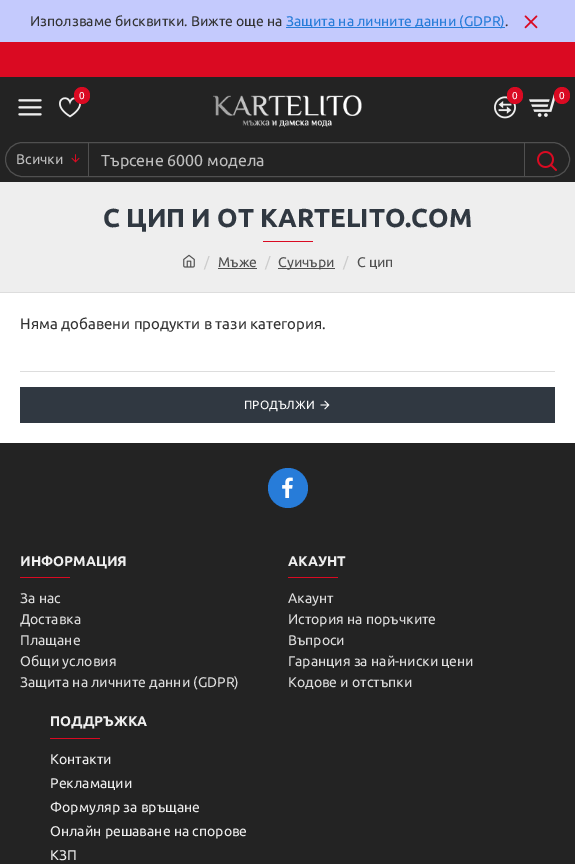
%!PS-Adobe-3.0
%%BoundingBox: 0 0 575 864
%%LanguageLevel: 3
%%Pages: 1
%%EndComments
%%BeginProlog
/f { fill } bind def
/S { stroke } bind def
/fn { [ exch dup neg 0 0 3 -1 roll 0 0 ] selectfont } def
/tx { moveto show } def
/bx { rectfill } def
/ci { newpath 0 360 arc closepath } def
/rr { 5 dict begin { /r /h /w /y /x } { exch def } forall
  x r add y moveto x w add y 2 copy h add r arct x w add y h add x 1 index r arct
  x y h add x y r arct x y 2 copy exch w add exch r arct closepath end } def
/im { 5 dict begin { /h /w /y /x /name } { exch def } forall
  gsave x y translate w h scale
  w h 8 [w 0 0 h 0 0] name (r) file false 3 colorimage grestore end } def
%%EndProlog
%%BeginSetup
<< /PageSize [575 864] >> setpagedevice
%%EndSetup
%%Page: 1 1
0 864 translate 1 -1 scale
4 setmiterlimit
1 setgray
0 0 575 864 bx
0.769 0.792 0.992 setrgbcolor
0 0 575 42 bx
/Ubuntu-Regular 14 fn
0.2 setgray
(Използваме бисквитки. Вижте още на) 30 26 tx
0.153 0.486 0.851 setrgbcolor
286 27 219 1 bx
(Защита на личните данни \(GDPR\)) 286 26 tx
0.2 setgray
(.) 505 26 tx
(image0.raw) 524 15 14 14 im
0.855 0.039 0.133 setrgbcolor
0 42 575 35 bx
0.137 setgray
0 77 575 105 bx
(image1.raw) 18 99 24 17 im
(image2.raw) 59 97 22 21 im
0.855 0.039 0.133 setrgbcolor
74 87 16 17 8 rr f
/Ubuntu-Regular 10 fn
1 setgray
(0) 79 99 tx
(image3.raw) 213 95 149 32 im
(image4.raw) 494 96 22 23 im
0.855 0.039 0.133 setrgbcolor
507 87 16 17 8 rr f
1 setgray
(0) 512 99 tx
(image5.raw) 529 94 26 23 im
0.855 0.039 0.133 setrgbcolor
554 87 16 17 8 rr f
1 setgray
(0) 559 99 tx
0.314 setgray
5.5 142.5 564 34 17 rr S
88 143 1 33 bx
/Ubuntu-Regular 14 fn
0.745 setgray
(Всички) 16 164 tx
(image6.raw) 71 154 9 9 im
/Ubuntu-Regular 16 fn
(Търсене 6000 модела) 101 166 tx
0.314 setgray
524 143 1 33 bx
(image7.raw) 537 151 20 20 im
0.933 setgray
0 182 575 110 bx
/Ubuntu-Bold 26 fn
0.188 0.22 0.255 setrgbcolor
(С ЦИП И ОТ KARTELITO.COM) 103 227 tx
0.855 0.039 0.133 setrgbcolor
263 241 50 1 bx
0.867 setgray
0 292 575 1 bx
(image8.raw) 183 254 12 14 im
/Ubuntu-Regular 14 fn
0.8 setgray
(/) 204 267 tx
0.314 setgray
(Мъже) 218 267 tx
218 268 39 1 bx
0.8 setgray
(/) 265 267 tx
0.314 setgray
278 268 57 1 bx
(Суичъри) 278 267 tx
0.8 setgray
(/) 343 267 tx
0.314 setgray
(С цип) 357 267 tx
/Ubuntu-Regular 15 fn
0.2 setgray
(Няма добавени продукти в тази категория.) 20 329 tx
0.867 setgray
20 371 535 1 bx
0.188 0.22 0.255 setrgbcolor
20 387 535 36 bx
/Ubuntu-Regular 12 fn
1 setgray
(ПРОДЪЛЖИ) 244 409 tx
(image9.raw) 320 400 10 10 im
0.137 setgray
0 443 575 421 bx
0.153 0.486 0.851 setrgbcolor
288 488 20 ci f
(image10.raw) 282 477 11 21 im
/Ubuntu-Bold 14 fn
0.933 setgray
(ИНФОРМАЦИЯ) 20 566 tx
0.855 0.039 0.133 setrgbcolor
20 577 50 1 bx
/Ubuntu-Regular 14 fn
0.867 setgray
(За нас) 20 603 tx
(Доставка) 20 624 tx
(Плащане) 20 645 tx
(Общи условия) 20 666 tx
(Защита на личните данни \(GDPR\)) 20 687 tx
/Ubuntu-Bold 14 fn
0.933 setgray
(АКАУНТ) 288 566 tx
0.855 0.039 0.133 setrgbcolor
288 577 50 1 bx
/Ubuntu-Regular 14 fn
0.867 setgray
(Акаунт) 288 603 tx
(История на поръчките) 288 624 tx
(Въпроси) 288 645 tx
(Гаранция за най-ниски цени) 288 666 tx
(Кодове и отстъпки) 288 687 tx
/Ubuntu-Bold 14 fn
0.933 setgray
(ПОДДРЪЖКА) 50 726 tx
0.855 0.039 0.133 setrgbcolor
50 738 50 1 bx
/Ubuntu-Regular 14 fn
0.933 setgray
(Контакти) 50 764 tx
(Рекламации) 50 788 tx
(Формуляр за връщане) 50 812 tx
(Онлайн решаване на спорове) 50 836 tx
(КЗП) 50 860 tx
showpage
%%EOF
